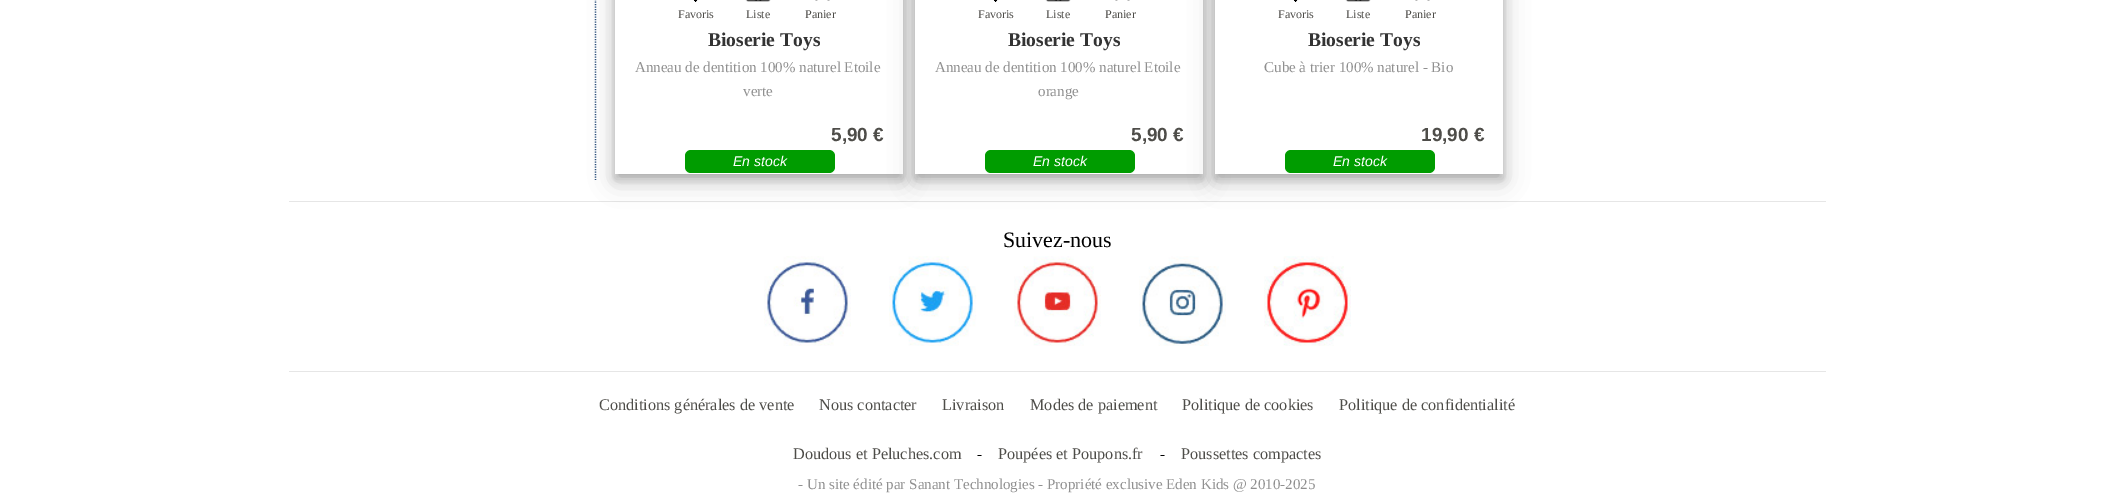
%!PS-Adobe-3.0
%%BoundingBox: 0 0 2113 494
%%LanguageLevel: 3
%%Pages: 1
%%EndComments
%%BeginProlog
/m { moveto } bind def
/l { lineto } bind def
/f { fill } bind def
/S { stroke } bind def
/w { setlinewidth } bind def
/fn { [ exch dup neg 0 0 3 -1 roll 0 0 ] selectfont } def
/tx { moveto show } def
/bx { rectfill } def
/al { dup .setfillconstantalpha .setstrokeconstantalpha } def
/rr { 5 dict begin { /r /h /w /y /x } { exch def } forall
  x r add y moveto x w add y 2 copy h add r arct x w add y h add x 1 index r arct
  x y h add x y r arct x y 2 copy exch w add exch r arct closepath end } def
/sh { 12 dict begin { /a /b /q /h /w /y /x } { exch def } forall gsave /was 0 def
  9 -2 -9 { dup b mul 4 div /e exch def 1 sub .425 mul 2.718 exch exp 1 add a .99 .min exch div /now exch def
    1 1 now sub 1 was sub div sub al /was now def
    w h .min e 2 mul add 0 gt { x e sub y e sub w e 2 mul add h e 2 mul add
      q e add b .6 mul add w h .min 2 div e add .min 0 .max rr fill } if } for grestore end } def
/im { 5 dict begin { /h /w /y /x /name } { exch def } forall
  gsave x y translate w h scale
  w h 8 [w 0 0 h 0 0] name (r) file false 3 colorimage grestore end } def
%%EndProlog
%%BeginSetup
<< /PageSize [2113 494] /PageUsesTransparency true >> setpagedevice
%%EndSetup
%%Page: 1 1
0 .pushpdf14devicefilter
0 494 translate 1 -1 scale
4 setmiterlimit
1 setgray
0 0 2113 494 bx
0.169 0.318 0.49 setrgbcolor
1.2 w
[1.25 1.25] 0 setdash
595.5 -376 m 595.5 180 l S
0.902 setgray
289 201 1537 1 bx
0 setgray
615 -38 288 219 0 12.5 0.19 sh
615 -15 288 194 0 5 0.2 sh
1 setgray
615 0 288 174 bx
(image0.raw) 693 0 5 2 im
/LiberationSerif-Regular 12 fn
0.306 0.302 0.286 setrgbcolor
(Favoris) 678 18 tx
(image1.raw) 745 0 26 2 im
(Liste) 746 18 tx
(image2.raw) 815 0 15 1 im
(Panier) 805 18 tx
/LiberationSerif-Bold 19.5 fn
0.2 setgray
(Bioserie Toys) 708 46 tx
/LiberationSerif-Regular 15 fn
0.565 setgray
(Anneau de dentition 100% naturel Etoile) 635 72 tx
(verte) 743 96 tx
/LiberationSans-Bold 19 fn
0.306 0.302 0.286 setrgbcolor
(5,90 €) 831 141 tx
0 0.612 0 setrgbcolor
685 150 150 23 6 rr f
/LiberationSans-Italic 14 fn
1 setgray
(En stock) 733 166 tx
0 setgray
915 -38 288 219 0 12.5 0.19 sh
915 -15 288 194 0 5 0.2 sh
1 setgray
915 0 288 174 bx
(image0.raw) 993 0 5 2 im
/LiberationSerif-Regular 12 fn
0.306 0.302 0.286 setrgbcolor
(Favoris) 978 18 tx
(image1.raw) 1045 0 26 2 im
(Liste) 1046 18 tx
(image2.raw) 1115 0 15 1 im
(Panier) 1105 18 tx
/LiberationSerif-Bold 19.5 fn
0.2 setgray
(Bioserie Toys) 1008 46 tx
/LiberationSerif-Regular 15 fn
0.565 setgray
(Anneau de dentition 100% naturel Etoile) 935 72 tx
(orange) 1038 96 tx
/LiberationSans-Bold 19 fn
0.306 0.302 0.286 setrgbcolor
(5,90 €) 1131 141 tx
0 0.612 0 setrgbcolor
985 150 150 23 6 rr f
/LiberationSans-Italic 14 fn
1 setgray
(En stock) 1033 166 tx
0 setgray
1215 -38 288 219 0 12.5 0.19 sh
1215 -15 288 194 0 5 0.2 sh
1 setgray
1215 0 288 174 bx
(image0.raw) 1293 0 5 2 im
/LiberationSerif-Regular 12 fn
0.306 0.302 0.286 setrgbcolor
(Favoris) 1278 18 tx
(image1.raw) 1345 0 26 2 im
(Liste) 1346 18 tx
(image2.raw) 1415 0 15 1 im
(Panier) 1405 18 tx
/LiberationSerif-Bold 19.5 fn
0.2 setgray
(Bioserie Toys) 1308 46 tx
/LiberationSerif-Regular 15 fn
0.565 setgray
(Cube à trier 100% naturel - Bio) 1264 72 tx
/LiberationSans-Bold 19 fn
0.306 0.302 0.286 setrgbcolor
(19,90 €) 1421 141 tx
0 0.612 0 setrgbcolor
1285 150 150 23 6 rr f
/LiberationSans-Italic 14 fn
1 setgray
(En stock) 1333 166 tx
/LiberationSerif-Regular 22 fn
0 setgray
(Suivez-nous) 1003 247 tx
(image3.raw) 764 256 87 90 im
(image4.raw) 889 256 88 90 im
(image5.raw) 1014 256 87 90 im
(image6.raw) 1139 256 87 90 im
(image7.raw) 1264 256 87 90 im
0.902 setgray
289 371 1537 1 bx
/LiberationSerif-Regular 16.25 fn
0.306 0.302 0.286 setrgbcolor
(Conditions générales de vente) 599 410 tx
(Nous contacter) 819 410 tx
(Livraison) 942 410 tx
(Modes de paiement) 1030 410 tx
(Politique de cookies) 1182 410 tx
(Politique de confidentialité) 1339 410 tx
(Doudous et Peluches.com) 793 459 tx
/LiberationSerif-Regular 15 fn
0 setgray
(-) 977 459 tx
/LiberationSerif-Regular 16.25 fn
0.306 0.302 0.286 setrgbcolor
(Poupées et Poupons.fr) 998 459 tx
/LiberationSerif-Regular 15 fn
0 setgray
(-) 1160 459 tx
/LiberationSerif-Regular 16.25 fn
0.306 0.302 0.286 setrgbcolor
(Poussettes compactes) 1181 459 tx
/LiberationSerif-Regular 15 fn
0.565 setgray
(- Un site édité par Sanant Technologies - Propriété exclusive Eden Kids @ 2010-2025) 798 489 tx
.poppdf14devicefilter showpage
%%EOF
